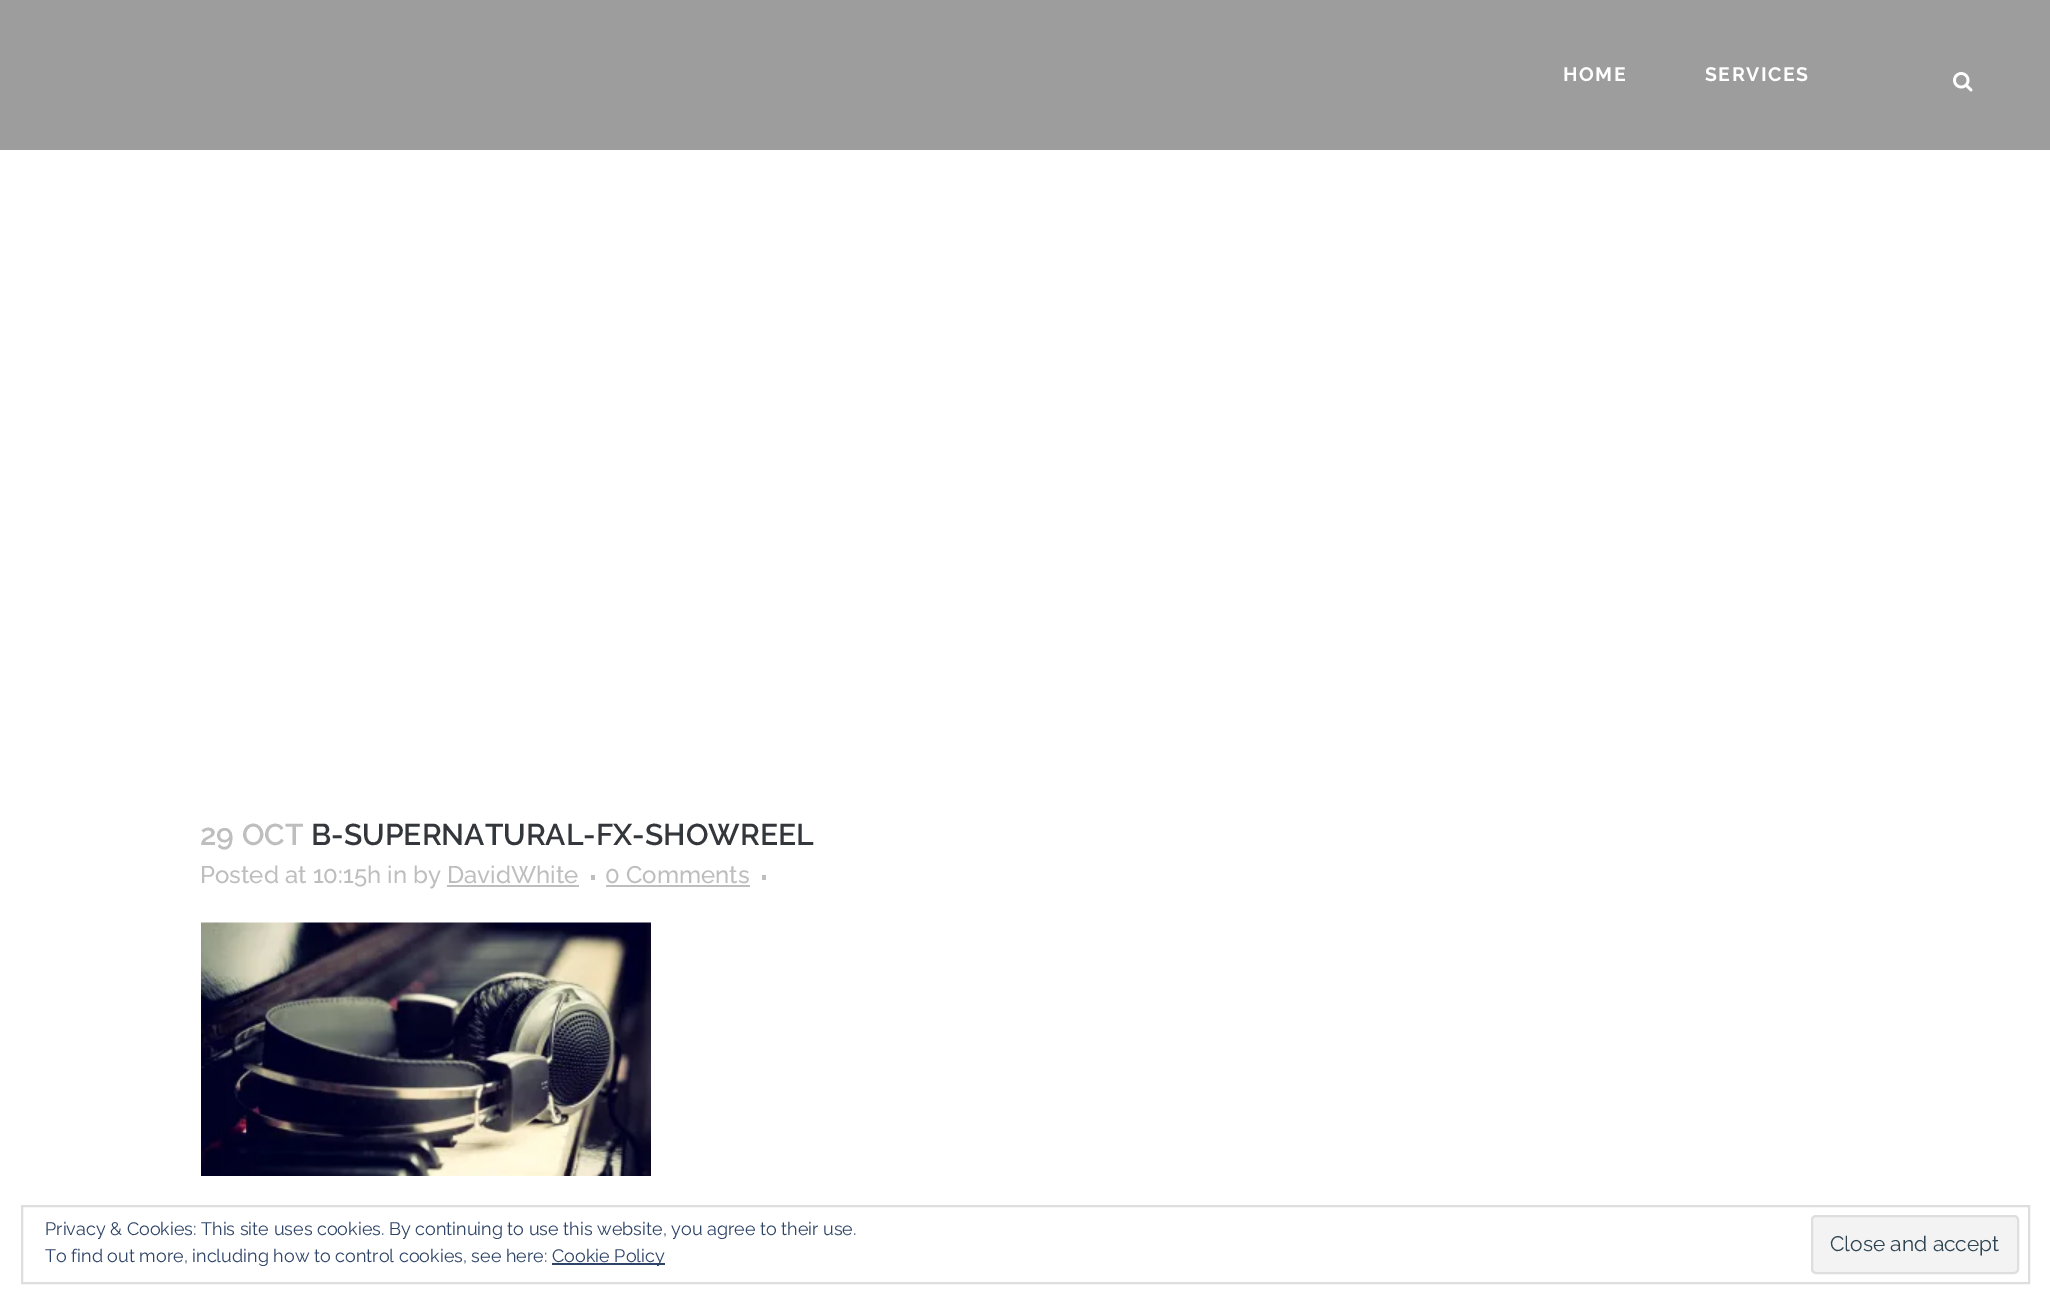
%!PS-Adobe-3.0
%%BoundingBox: 0 0 2050 1305
%%LanguageLevel: 3
%%Pages: 1
%%EndComments
%%BeginProlog
/m { moveto } bind def
/f { fill } bind def
/S { stroke } bind def
/q { gsave } bind def
/Q { grestore } bind def
/w { setlinewidth } bind def
/fn { [ exch dup neg 0 0 3 -1 roll 0 0 ] selectfont } def
/tx { moveto show } def
/bx { rectfill } def
/rr { 5 dict begin { /r /h /w /y /x } { exch def } forall
  x r add y moveto x w add y 2 copy h add r arct x w add y h add x 1 index r arct
  x y h add x y r arct x y 2 copy exch w add exch r arct closepath end } def
/im { 5 dict begin { /h /w /y /x /name } { exch def } forall
  gsave x y translate w h scale
  w h 8 [w 0 0 h 0 0] name (r) file false 3 colorimage grestore end } def
%%EndProlog
%%BeginSetup
<< /PageSize [2050 1305] >> setpagedevice
%%EndSetup
%%Page: 1 1
0 1305 translate 1 -1 scale
4 setmiterlimit
1 setgray
0 0 2050 1305 bx
0.616 setgray
0 0 2050 150 bx
/Raleway-Bold 19.5 fn
1 setgray
1563 81 m 1.5 0 (HOME) ashow
1705 81 m 1.5 0 (SERVICES) ashow
(image0.raw) 1953 72 20 20 im
/Raleway-SemiBold 30 fn
0.745 setgray
(29 OCT) 200 845 tx
0.2 0.212 0.227 setrgbcolor
(B-SUPERNATURAL-FX-SHOWREEL) 311 845 tx
/Raleway-Medium 24 fn
0.745 setgray
(Posted at 10:15h in by DavidWhite) 200 883 tx
591 875 4 5 bx
(0 Comments) 605 883 tx
606 885 144 2 bx
762 875 4 5 bx
447 885 132 2 bx
(image1.raw) 201 922 450 254 im
0.871 setgray
2 w
22 1206 2007 77 rectstroke
/Raleway-Regular 18 fn
0.18 0.267 0.404 setrgbcolor
(Privacy & Cookies: This site uses cookies. By continuing to use this website, you agree to their use.) 45 1235 tx
(To find out more, including how to control cookies, see here:) 45 1262 tx
552 1263 113 2 bx
(Cookie Policy) 552 1262 tx
0.953 setgray
1812 1216 206 57 4 rr q f Q
0.871 setgray
S
/Raleway-Regular 21 fn
0.18 0.267 0.325 setrgbcolor
(Close and accept) 1830 1251 tx
showpage
%%EOF
